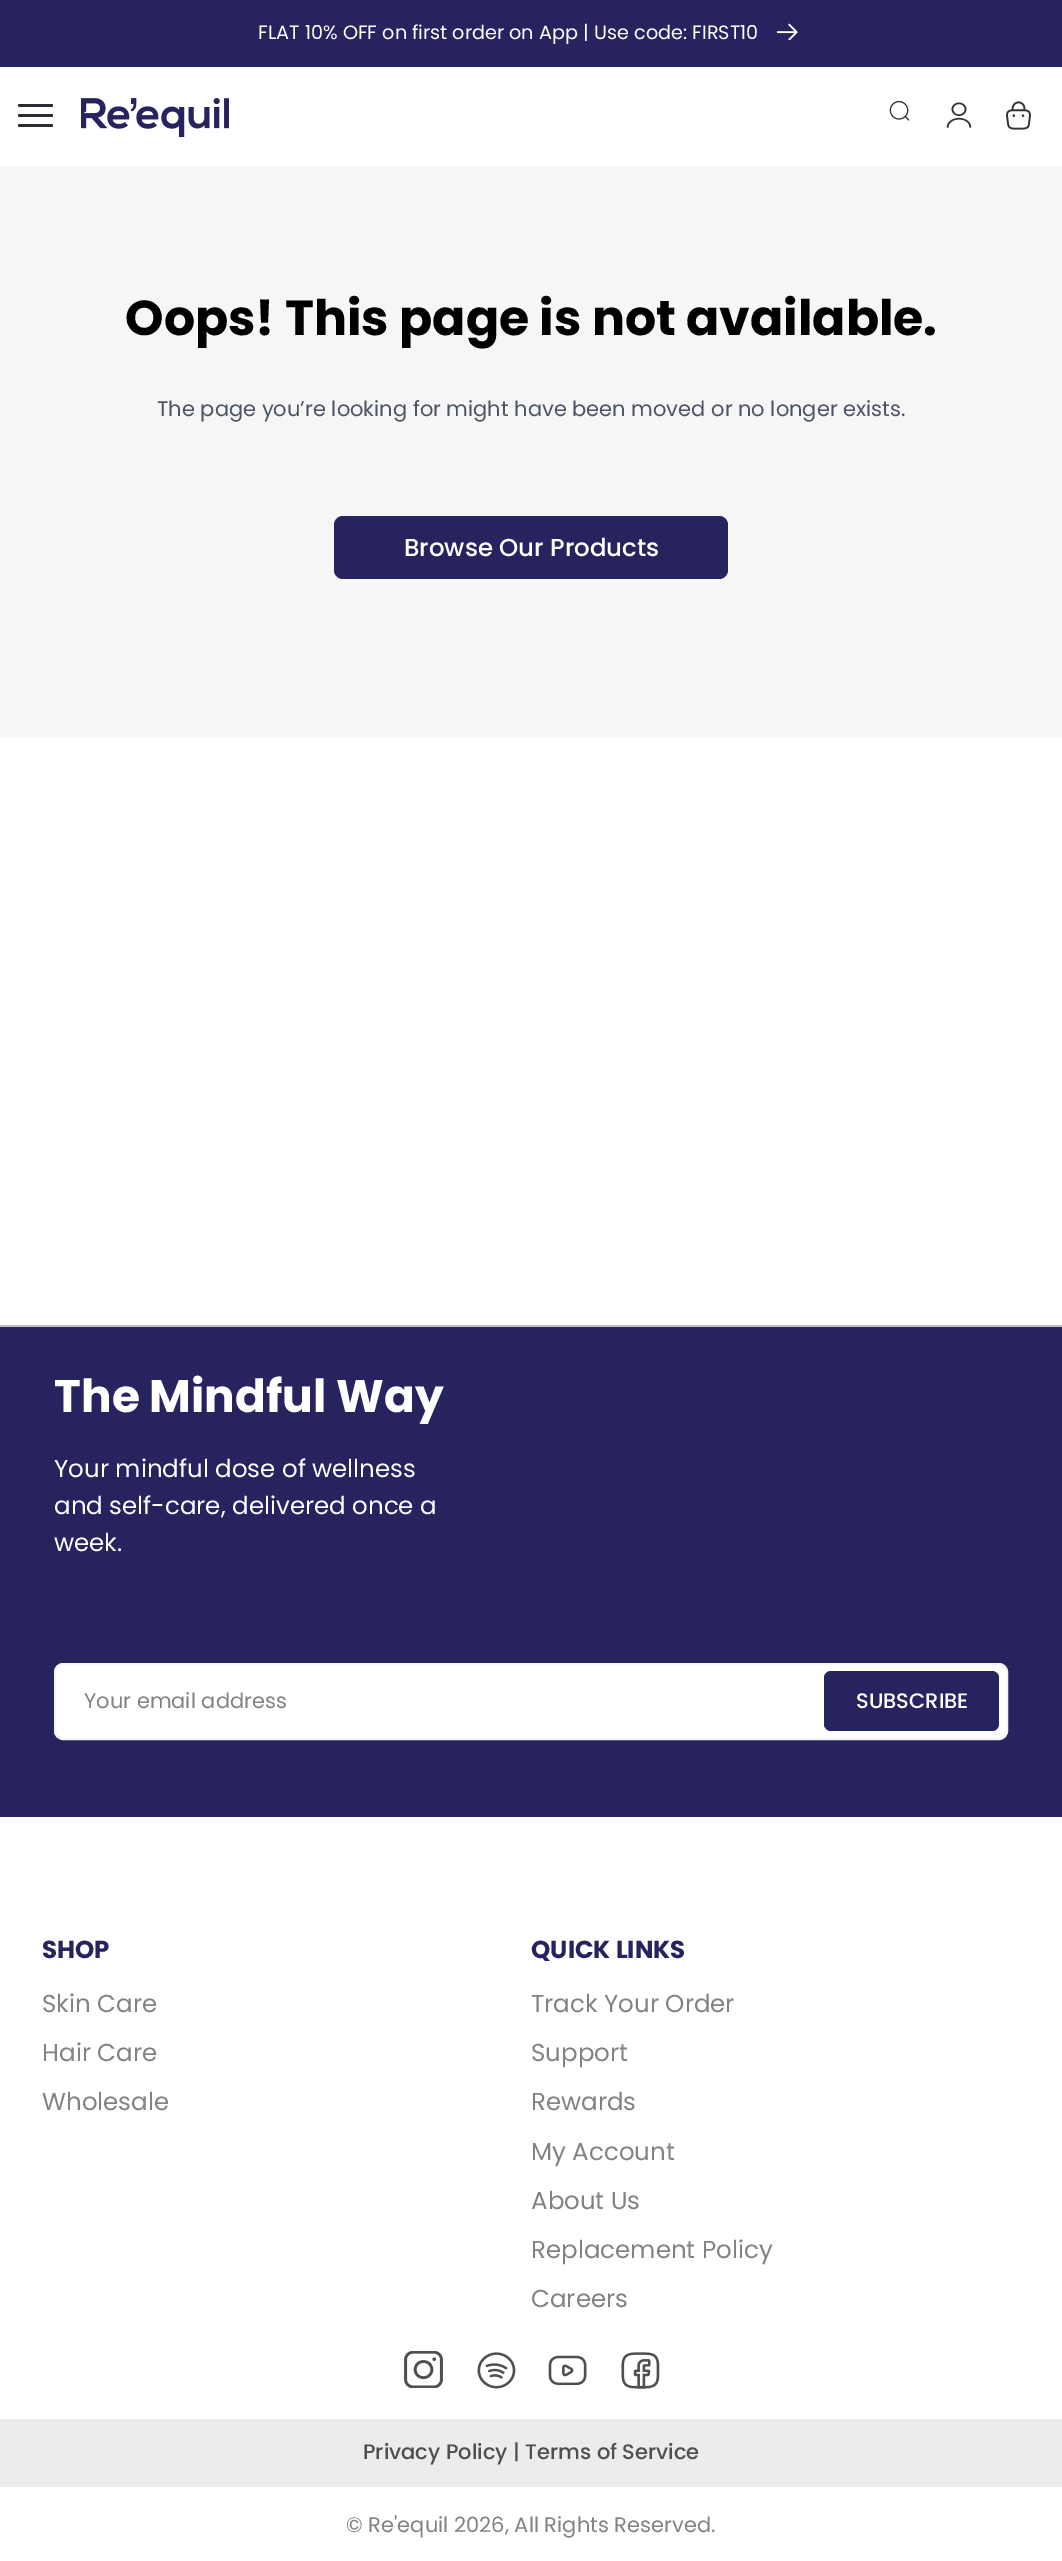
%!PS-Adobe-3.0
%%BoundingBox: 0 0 1062 2561
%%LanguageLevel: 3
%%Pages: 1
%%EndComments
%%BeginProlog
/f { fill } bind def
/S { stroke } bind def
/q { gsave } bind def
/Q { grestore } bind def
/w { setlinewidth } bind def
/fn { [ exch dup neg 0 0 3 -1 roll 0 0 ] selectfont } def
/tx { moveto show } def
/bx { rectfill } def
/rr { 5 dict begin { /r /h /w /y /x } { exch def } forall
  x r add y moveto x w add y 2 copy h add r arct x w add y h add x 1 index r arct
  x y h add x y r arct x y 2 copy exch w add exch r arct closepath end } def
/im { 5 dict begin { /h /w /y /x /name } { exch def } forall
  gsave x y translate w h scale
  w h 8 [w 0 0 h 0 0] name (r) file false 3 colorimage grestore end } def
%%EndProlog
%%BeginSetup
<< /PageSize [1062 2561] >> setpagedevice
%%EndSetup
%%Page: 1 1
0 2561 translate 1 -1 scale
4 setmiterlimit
1 setgray
0 0 1062 2561 bx
0.153 0.137 0.369 setrgbcolor
0 0 1062 67 bx
/Poppins-Regular 19.25 fn
1 setgray
(FLAT 10% OFF on first order on App | Use code: FIRST10) 258 39 tx
(image0.raw) 777 23 21 17 im
0.161 0.176 0.196 setrgbcolor
18 104 35 3 1.5 rr f
18 114 35 3 1.5 rr f
18 124 35 3 1.5 rr f
(image1.raw) 81 98 148 40 im
(image2.raw) 889 101 21 20 im
(image3.raw) 946 102 26 26 im
(image4.raw) 1006 101 25 29 im
0.965 setgray
0 166 1062 571 bx
/Poppins-Bold 49 fn
0 setgray
(Oops! This page is not available.) 125 335 tx
/Poppins-Regular 21 fn
0.294 0.333 0.388 setrgbcolor
(The page you’re looking for might have been moved or no longer exists.) 157 416 tx
0.153 0.137 0.369 setrgbcolor
334 516 394 63 9 rr f
/Poppins-Medium 24.5 fn
1 setgray
(Browse Our Products) 404 556 tx
0.741 setgray
0 1325 1062 2 bx
0.153 0.137 0.369 setrgbcolor
0 1327 1062 490 bx
/Poppins-Bold 45.5 fn
1 setgray
(The Mindful Way) 54 1412 tx
/Poppins-Regular 24.5 fn
(Your mindful dose of wellness) 54 1477 tx
(and self-care, delivered once a) 54 1514 tx
(week.) 54 1551 tx
55 1664 952 75 8 rr q f Q
0.961 setgray
2 w
S
/Poppins-Regular 21 fn
0.51 setgray
(Your email address) 84 1708 tx
0.153 0.137 0.369 setrgbcolor
824 1671 175 60 7 rr f
/Poppins-Medium 21 fn
1 setgray
(SUBSCRIBE) 856 1708 tx
/Poppins-Bold 24.5 fn
0.153 0.137 0.369 setrgbcolor
(SHOP) 42 1958 tx
/Poppins-Regular 24.5 fn
0.51 setgray
(Skin Care) 42 2012 tx
(Hair Care) 42 2061 tx
(Wholesale) 42 2110 tx
/Poppins-Bold 24.5 fn
0.153 0.137 0.369 setrgbcolor
(QUICK LINKS) 531 1958 tx
/Poppins-Regular 24.5 fn
0.51 setgray
(Track Your Order) 531 2012 tx
(Support) 531 2061 tx
(Rewards) 531 2110 tx
(My Account) 531 2160 tx
(About Us) 531 2209 tx
(Replacement Policy) 531 2258 tx
(Careers) 531 2307 tx
(image5.raw) 404 2351 39 37 im
(image6.raw) 477 2352 39 37 im
(image7.raw) 548 2355 39 31 im
(image8.raw) 621 2352 39 37 im
0.925 setgray
0 2419 1062 68 bx
/Poppins-Medium 21 fn
0.31 setgray
(Privacy Policy | Terms of Service) 363 2459 tx
/Poppins-Regular 21 fn
0.51 setgray
(© Re'equil 2026, All Rights Reserved.) 346 2532 tx
showpage
%%EOF
